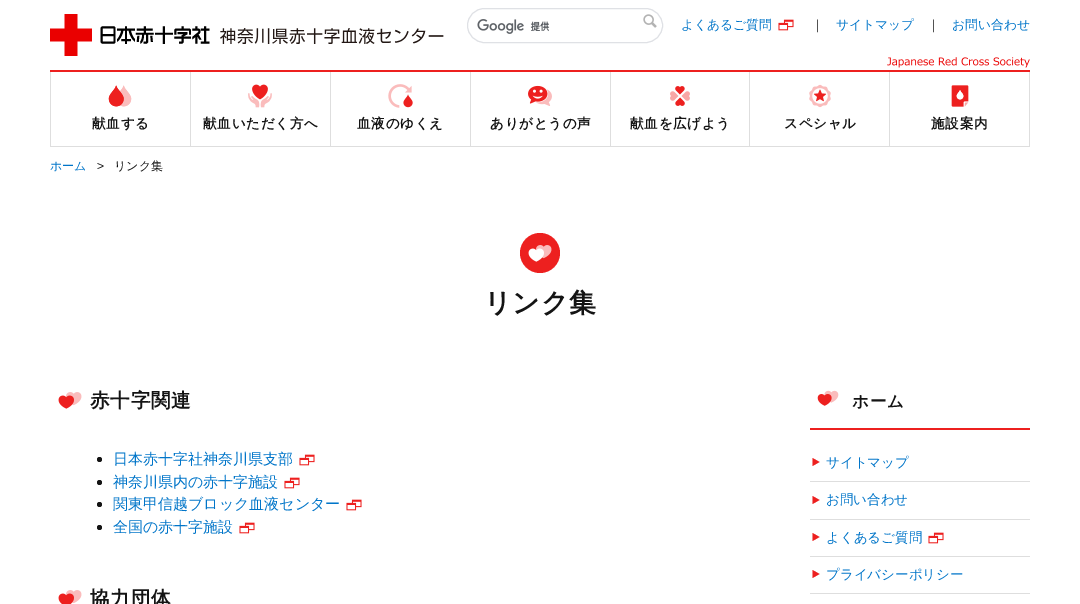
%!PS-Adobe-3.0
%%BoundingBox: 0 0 1080 604
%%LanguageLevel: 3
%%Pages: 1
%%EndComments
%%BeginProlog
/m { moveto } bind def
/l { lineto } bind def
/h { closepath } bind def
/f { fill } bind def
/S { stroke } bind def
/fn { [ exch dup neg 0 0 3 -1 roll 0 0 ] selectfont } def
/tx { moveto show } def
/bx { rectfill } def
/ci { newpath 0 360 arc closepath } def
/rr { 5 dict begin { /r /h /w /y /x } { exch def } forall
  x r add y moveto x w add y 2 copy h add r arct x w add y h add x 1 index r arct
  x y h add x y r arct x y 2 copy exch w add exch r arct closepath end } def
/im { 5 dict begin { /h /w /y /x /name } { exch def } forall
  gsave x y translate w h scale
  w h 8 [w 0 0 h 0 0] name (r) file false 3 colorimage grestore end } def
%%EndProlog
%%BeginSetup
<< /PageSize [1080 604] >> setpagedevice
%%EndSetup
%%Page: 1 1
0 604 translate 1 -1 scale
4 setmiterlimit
1 setgray
0 0 1080 604 bx
0.929 0.125 0.122 setrgbcolor
50 70 980 2 bx
(image0.raw) 50 14 160 42 im
(image1.raw) 220 28 224 16 im
0.875 0.882 0.898 setrgbcolor
467.5 8.5 195 34 17 rr S
(image2.raw) 477 19 73 15 im
(image3.raw) 643 14 14 14 im
/WenQuanYiZenHei-Medium 12.75 fn
0 0.459 0.788 setrgbcolor
(よくあるご質問) 681 29 tx
(image4.raw) 778 19 16 12 im
0.078 setgray
(｜) 811 29 tx
0 0.459 0.788 setrgbcolor
(サイトマップ) 836 29 tx
0.078 setgray
(｜) 927 29 tx
0 0.459 0.788 setrgbcolor
(お問い合わせ) 952 29 tx
(image5.raw) 887 57 143 11 im
0.871 setgray
50 146 839 1 bx
50 72 1 75 bx
(image6.raw) 108 85 24 22 im
/WenQuanYiZenHei-Bold 13.5 fn
0.078 setgray
92 128 m 0.75 0 (献血する) ashow
0.871 setgray
190 72 1 75 bx
(image7.raw) 248 84 24 24 im
0.078 setgray
203 128 m 0.75 0 (献血いただく方へ) ashow
0.871 setgray
330 72 1 75 bx
(image8.raw) 388 84 25 24 im
0.078 setgray
357 128 m 0.75 0 (血液のゆくえ) ashow
0.871 setgray
470 72 1 75 bx
(image9.raw) 528 85 24 21 im
0.078 setgray
490 128 m 0.75 0 (ありがとうの声) ashow
0.871 setgray
610 72 1 75 bx
(image10.raw) 670 86 20 20 im
0.078 setgray
630 128 m 0.75 0 (献血を広げよう) ashow
0.871 setgray
749 72 1 75 bx
(image11.raw) 809 84 22 24 im
0.078 setgray
784 128 m 0.75 0 (スペシャル) ashow
0.871 setgray
1029 72 1 75 bx
889 146 141 1 bx
889 72 1 75 bx
(image12.raw) 951 85 18 22 im
0.078 setgray
931 128 m 0.75 0 (施設案内) ashow
/WenQuanYiZenHei-Medium 12 fn
0 0.459 0.788 setrgbcolor
(ホーム) 50 170 tx
/LiberationSans-Regular 12 fn
0.078 setgray
(>) 97 170 tx
/WenQuanYiZenHei-Medium 12 fn
(リンク集) 114 170 tx
0.929 0.125 0.122 setrgbcolor
540 253 20 ci f
(image13.raw) 528 245 24 17 im
/WenQuanYiZenHei-Bold 27 fn
0.078 setgray
484 312 m 0.75 0 (リンク集) ashow
(image14.raw) 58 392 24 17 im
/WenQuanYiZenHei-Bold 19.5 fn
90 407 m 0.75 0 (赤十字関連) ashow
99.5 459.5 2.5 ci f
/WenQuanYiZenHei-Medium 15 fn
0 0.459 0.788 setrgbcolor
(日本赤十字社神奈川県支部) 113 464 tx
(image4.raw) 299 454 16 12 im
0.078 setgray
99.5 482.5 2.5 ci f
0 0.459 0.788 setrgbcolor
(神奈川県内の赤十字施設) 113 487 tx
(image4.raw) 284 477 16 12 im
0.078 setgray
99.5 504.5 2.5 ci f
0 0.459 0.788 setrgbcolor
(関東甲信越ブロック血液センター) 113 509 tx
(image4.raw) 346 499 16 12 im
0.078 setgray
99.5 527.5 2.5 ci f
0 0.459 0.788 setrgbcolor
(全国の赤十字施設) 113 532 tx
(image4.raw) 239 522 16 12 im
(image15.raw) 58 590 24 14 im
/WenQuanYiZenHei-Bold 19.5 fn
0.078 setgray
90 605 m 0.75 0 (協力団体) ashow
0.929 0.125 0.122 setrgbcolor
810 428 220 2 bx
(image16.raw) 817 390 22 16 im
/WenQuanYiZenHei-Bold 16.5 fn
0.078 setgray
852 407 m 0.75 0 (ホーム) ashow
0.871 setgray
810 481 220 1 bx
0.929 0.125 0.122 setrgbcolor
819.5 462 m 812.5 466 l 812.5 458 l h f
/WenQuanYiZenHei-Medium 13.5 fn
0 0.459 0.788 setrgbcolor
(サイトマップ) 826 467 tx
0.871 setgray
810 519 220 1 bx
0.929 0.125 0.122 setrgbcolor
819.5 500 m 812.5 504 l 812.5 496 l h f
0 0.459 0.788 setrgbcolor
(お問い合わせ) 826 504 tx
0.871 setgray
810 556 220 1 bx
0.929 0.125 0.122 setrgbcolor
819.5 537 m 812.5 541 l 812.5 533 l h f
0 0.459 0.788 setrgbcolor
(よくあるご質問) 826 542 tx
(image4.raw) 928 532 16 12 im
0.871 setgray
810 593 220 1 bx
0.929 0.125 0.122 setrgbcolor
819.5 574 m 812.5 578 l 812.5 570 l h f
0 0.459 0.788 setrgbcolor
(プライバシーポリシー) 826 579 tx
showpage
%%EOF
